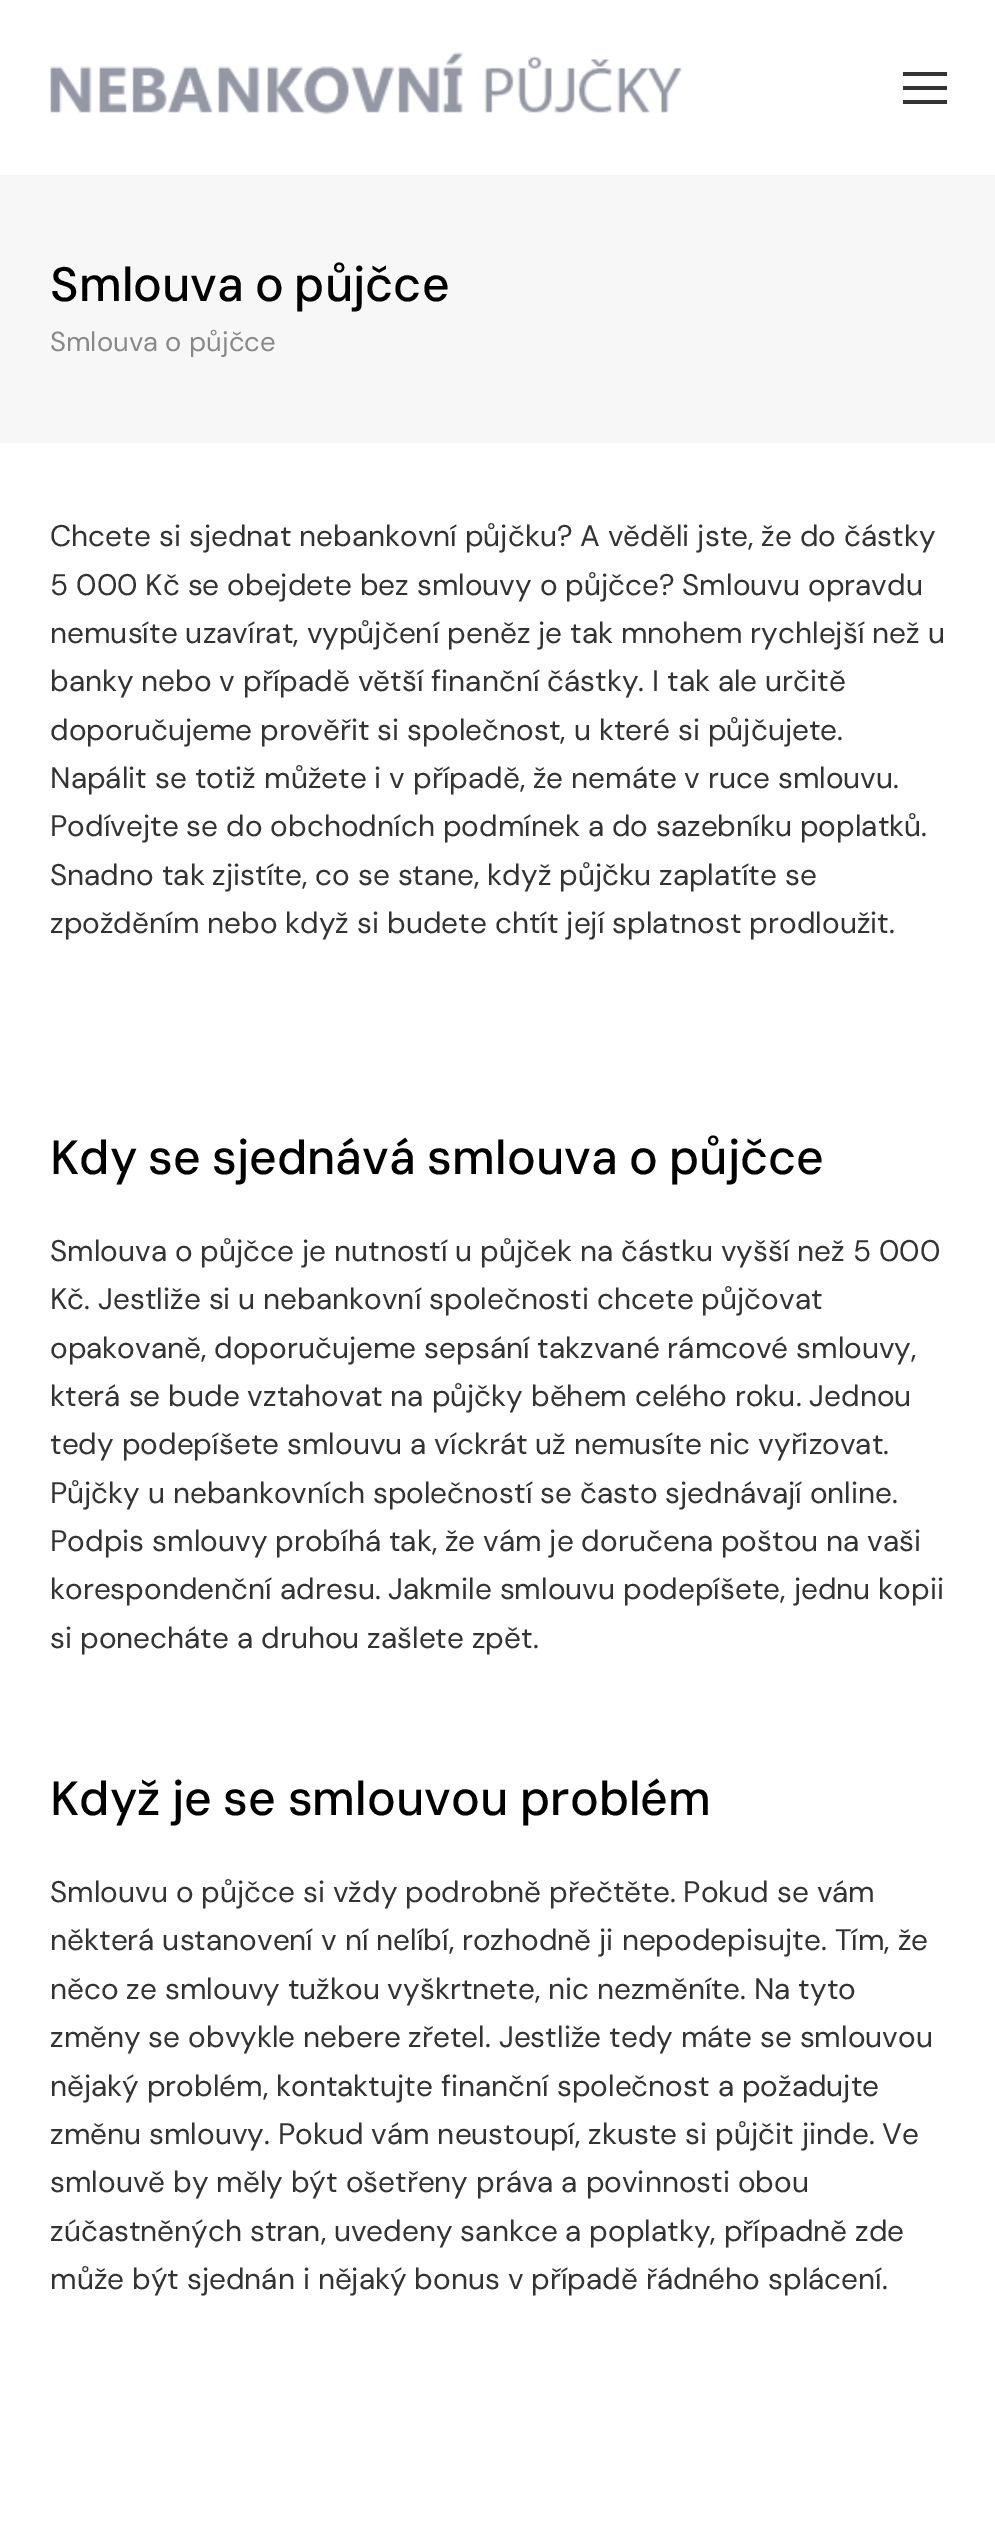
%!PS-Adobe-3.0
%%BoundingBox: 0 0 995 2547
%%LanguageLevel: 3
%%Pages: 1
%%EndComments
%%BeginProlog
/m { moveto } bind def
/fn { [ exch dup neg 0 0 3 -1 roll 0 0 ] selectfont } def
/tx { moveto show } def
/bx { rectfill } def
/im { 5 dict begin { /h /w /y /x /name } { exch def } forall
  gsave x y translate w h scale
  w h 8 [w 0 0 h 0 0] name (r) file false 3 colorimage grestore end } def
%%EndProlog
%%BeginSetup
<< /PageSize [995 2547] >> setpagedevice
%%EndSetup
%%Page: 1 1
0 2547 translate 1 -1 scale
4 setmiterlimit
1 setgray
0 0 995 2547 bx
(image0.raw) 50 52 633 63 im
0.2 setgray
903 86 44 4 bx
903 72 44 4 bx
903 100 44 4 bx
0.969 setgray
0 175 995 268 bx
/DMSans-Medium 48 fn
0 setgray
50 301 m -2 0 32 (Smlouva o půjčce) widthshow
/DMSans-Regular 27.5 fn
0.533 setgray
(Smlouva o půjčce) 50 351 tx
/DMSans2-Regular 29.75 fn
0.2 setgray
(Chcete si sjednat nebankovní půjčku? A věděli jste, že do částky) 50 546 tx
(5 000 Kč se obejdete bez smlouvy o půjčce? Smlouvu opravdu) 50 595 tx
(nemusíte uzavírat, vypůjčení peněz je tak mnohem rychlejší než u) 50 643 tx
(banky nebo v případě větší finanční částky. I tak ale určitě) 50 691 tx
(doporučujeme prověřit si společnost, u které si půjčujete.) 50 740 tx
(Napálit se totiž můžete i v případě, že nemáte v ruce smlouvu.) 50 788 tx
(Podívejte se do obchodních podmínek a do sazebníku poplatků.) 50 836 tx
(Snadno tak zjistíte, co se stane, když půjčku zaplatíte se) 50 885 tx
(zpožděním nebo když si budete chtít její splatnost prodloužit.) 50 933 tx
/DMSans-Medium 48 fn
0 setgray
50 1174 m -1.5 0 32 (Kdy se sjednává smlouva o půjčce) widthshow
/DMSans2-Regular 29.75 fn
0.2 setgray
(Smlouva o půjčce je nutností u půjček na částku vyšší než 5 000) 50 1261 tx
(Kč. Jestliže si u nebankovní společnosti chcete půjčovat) 50 1309 tx
(opakovaně, doporučujeme sepsání takzvané rámcové smlouvy,) 50 1358 tx
(která se bude vztahovat na půjčky během celého roku. Jednou) 50 1406 tx
(tedy podepíšete smlouvu a víckrát už nemusíte nic vyřizovat.) 50 1454 tx
(Půjčky u nebankovních společností se často sjednávají online.) 50 1503 tx
(Podpis smlouvy probíhá tak, že vám je doručena poštou na vaši) 50 1551 tx
(korespondenční adresu. Jakmile smlouvu podepíšete, jednu kopii) 50 1599 tx
(si ponecháte a druhou zašlete zpět.) 50 1648 tx
/DMSans-Medium 48 fn
0 setgray
50 1815 m -1 0 32 (Když je se smlouvou problém) widthshow
/DMSans2-Regular 29.75 fn
0.2 setgray
(Smlouvu o půjčce si vždy podrobně přečtěte. Pokud se vám) 50 1902 tx
(některá ustanovení v ní nelíbí, rozhodně ji nepodepisujte. Tím, že) 50 1950 tx
(něco ze smlouvy tužkou vyškrtnete, nic nezměníte. Na tyto) 50 1999 tx
(změny se obvykle nebere zřetel. Jestliže tedy máte se smlouvou) 50 2047 tx
(nějaký problém, kontaktujte finanční společnost a požadujte) 50 2096 tx
(změnu smlouvy. Pokud vám neustoupí, zkuste si půjčit jinde. Ve) 50 2144 tx
(smlouvě by měly být ošetřeny práva a povinnosti obou) 50 2192 tx
(zúčastněných stran, uvedeny sankce a poplatky, případně zde) 50 2241 tx
(může být sjednán i nějaký bonus v případě řádného splácení.) 50 2289 tx
showpage
%%EOF
